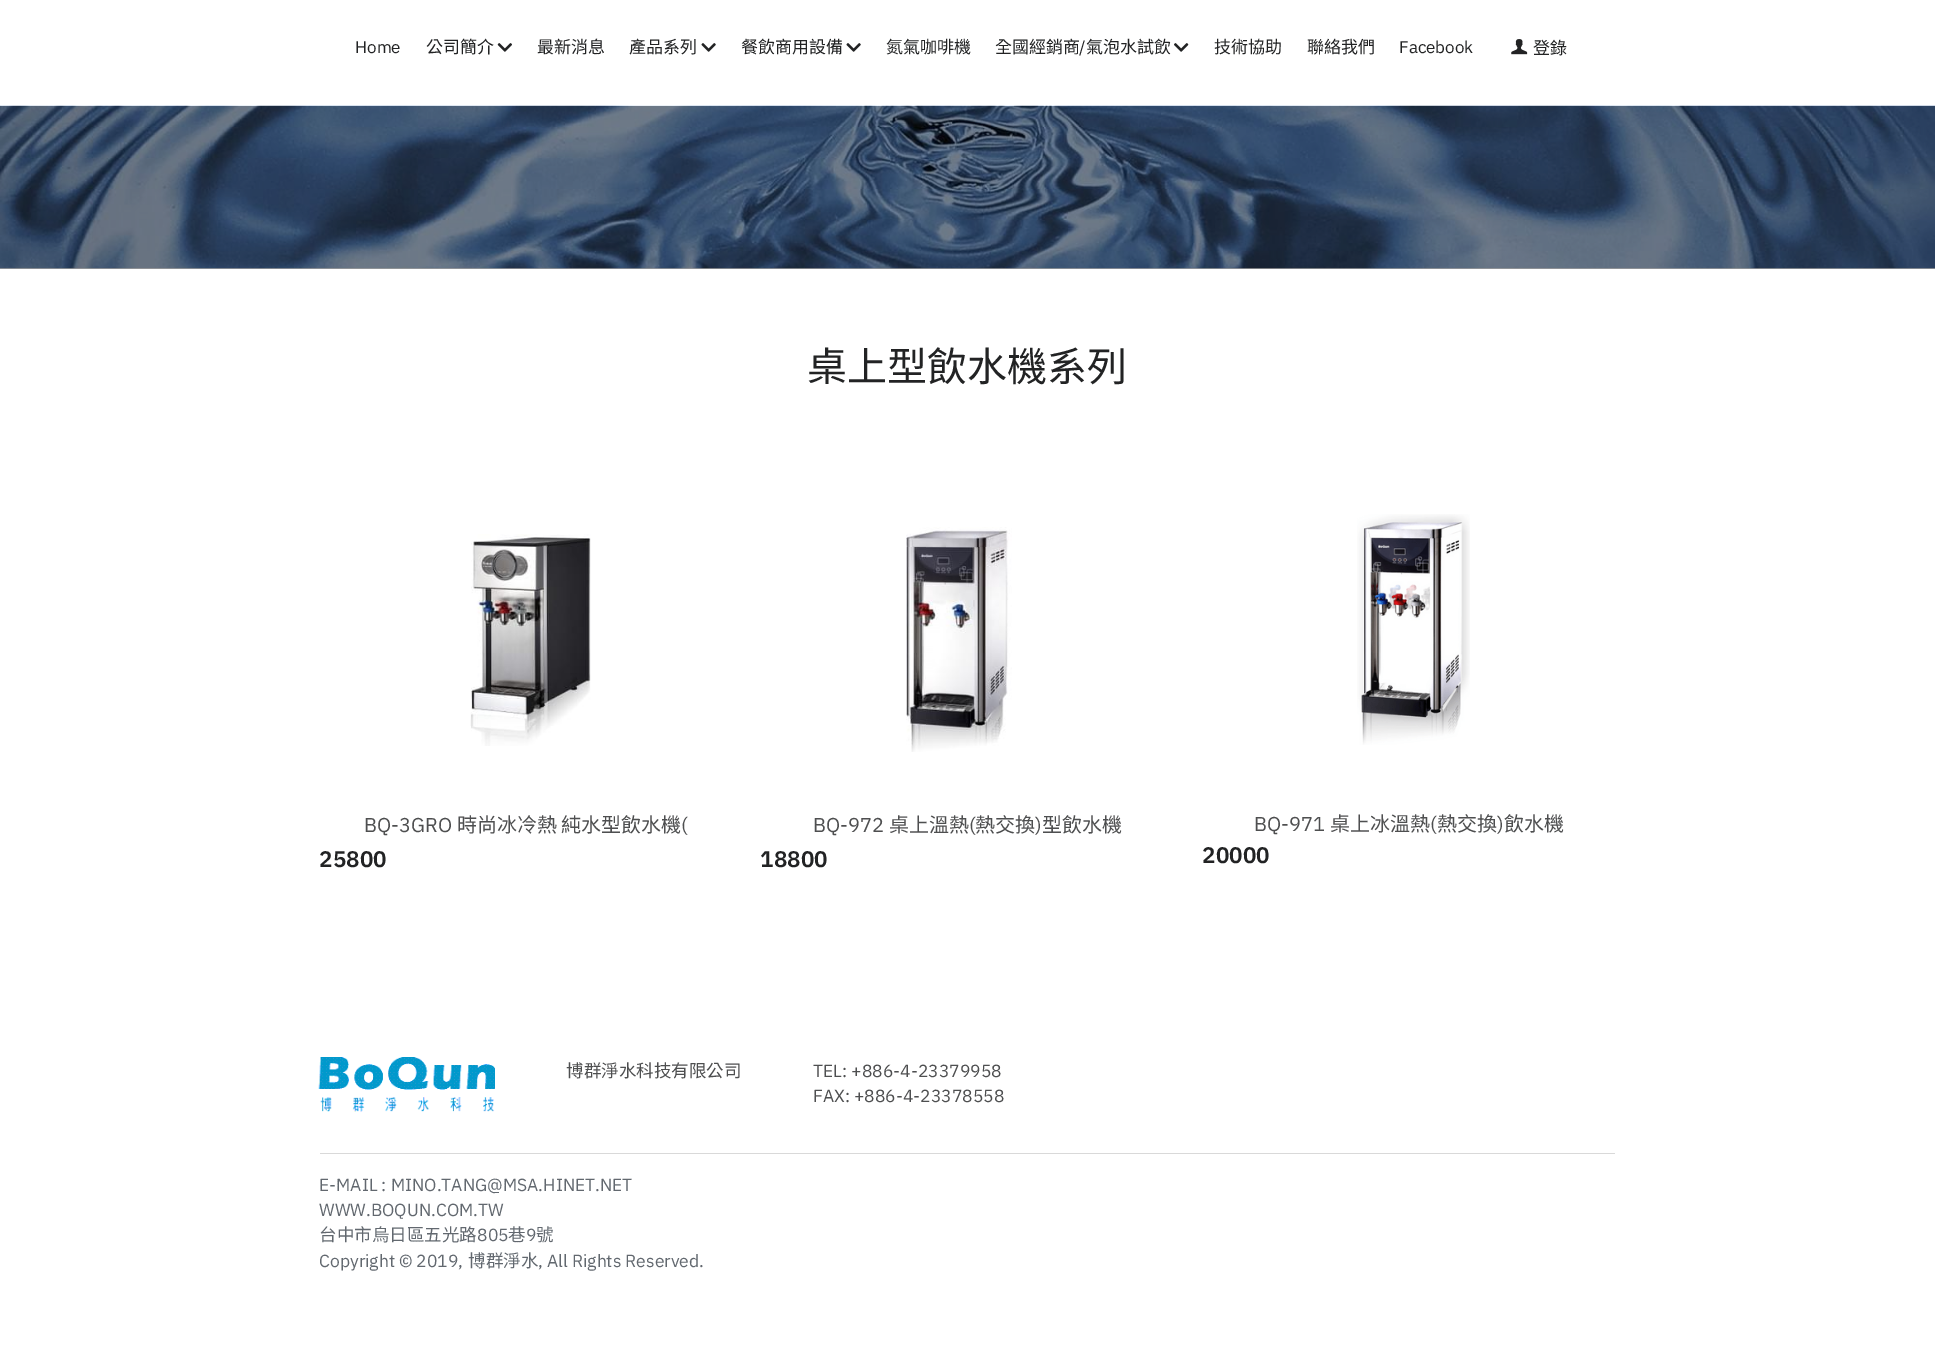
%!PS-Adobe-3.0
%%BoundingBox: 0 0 1935 1360
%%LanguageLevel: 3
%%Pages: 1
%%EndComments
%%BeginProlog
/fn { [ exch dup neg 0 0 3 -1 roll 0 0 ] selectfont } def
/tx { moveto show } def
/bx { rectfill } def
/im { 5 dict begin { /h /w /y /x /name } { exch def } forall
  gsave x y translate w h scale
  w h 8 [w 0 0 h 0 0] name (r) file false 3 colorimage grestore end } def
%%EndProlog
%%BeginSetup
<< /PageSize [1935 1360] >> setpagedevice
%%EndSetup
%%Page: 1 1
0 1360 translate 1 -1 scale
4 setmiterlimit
1 setgray
0 0 1935 1360 bx
0.612 setgray
0 268 1935 1 bx
/IBMPlexSans-Regular 17 fn
0.133 0.137 0.141 setrgbcolor
(Home) 355 53 tx
/NotoSansCJKTC-Regular 17 fn
(公司簡介) 426 53 tx
(image0.raw) 497 43 15 9 im
(最新消息) 537 53 tx
(產品系列) 629 53 tx
(image1.raw) 701 43 15 9 im
(餐飲商用設備) 741 53 tx
(image1.raw) 846 43 15 9 im
(氮氣咖啡機) 886 53 tx
(全國經銷商) 995 53 tx
/IBMPlexSans-Regular 17 fn
(/) 1079 53 tx
/NotoSansCJKTC-Regular 17 fn
(氣泡水試飲) 1086 53 tx
(image2.raw) 1174 43 15 9 im
(技術協助) 1214 53 tx
(聯絡我們) 1307 53 tx
/IBMPlexSans-Regular 17 fn
(Facebook) 1399 53 tx
(image3.raw) 1511 39 17 16 im
/NotoSansCJKTC-Regular 17 fn
(登錄) 1533 54 tx
(image4.raw) 0 105 1935 164 im
/NotoSansCJKTC-Regular 40 fn
(桌上型飲水機系列) 807 381 tx
(image5.raw) 470 534 121 212 im
/IBMPlexSans-Regular 20 fn
0.306 0.31 0.314 setrgbcolor
(BQ-3GRO) 364 832 tx
/NotoSansCJKTC-Regular 20 fn
(時尚冰冷熱 純水型飲水機) 457 832 tx
/IBMPlexSans-Regular 20 fn
(\() 681 832 tx
/IBMPlexSans-SemiBold 22.5 fn
0.133 0.137 0.141 setrgbcolor
(25800) 319 867 tx
(image6.raw) 906 527 106 225 im
/IBMPlexSans-Regular 20 fn
0.306 0.31 0.314 setrgbcolor
(BQ-972) 813 832 tx
/NotoSansCJKTC-Regular 20 fn
(桌上溫熱) 889 832 tx
/IBMPlexSans-Regular 20 fn
(\() 969 832 tx
/NotoSansCJKTC-Regular 20 fn
(熱交換) 975 832 tx
/IBMPlexSans-Regular 20 fn
(\)) 1035 832 tx
/NotoSansCJKTC-Regular 20 fn
(型飲水機) 1042 832 tx
/IBMPlexSans-SemiBold 22.5 fn
0.133 0.137 0.141 setrgbcolor
(18800) 760 867 tx
(image7.raw) 1357 514 113 231 im
/IBMPlexSans-Regular 20 fn
0.306 0.31 0.314 setrgbcolor
(BQ-971) 1254 831 tx
/NotoSansCJKTC-Regular 20 fn
(桌上冰溫熱) 1330 831 tx
/IBMPlexSans-Regular 20 fn
(\() 1430 831 tx
/NotoSansCJKTC-Regular 20 fn
(熱交換) 1437 831 tx
/IBMPlexSans-Regular 20 fn
(\)) 1497 831 tx
/NotoSansCJKTC-Regular 20 fn
(飲水機) 1504 831 tx
/IBMPlexSans-SemiBold 22.5 fn
0.133 0.137 0.141 setrgbcolor
(20000) 1202 863 tx
(image8.raw) 318 1057 177 55 im
/NotoSansCJKTC-Regular 17.5 fn
0.306 0.31 0.314 setrgbcolor
(博群淨水科技有限公司) 566 1077 tx
/IBMPlexSans-Regular 17.5 fn
(TEL: +886-4-23379958) 813 1077 tx
(FAX: +886-4-23378558) 813 1102 tx
0.851 setgray
320 1153 1295 1 bx
0.384 0.408 0.435 setrgbcolor
(E-MAIL : MINO.TANG@MSA.HINET.NET) 319 1191 tx
(WWW.BOQUN.COM.TW) 319 1216 tx
/NotoSansCJKTC-Regular 17.5 fn
(台中市烏日區五光路) 319 1241 tx
/IBMPlexSans-Regular 17.5 fn
(805) 477 1241 tx
/NotoSansCJKTC-Regular 17.5 fn
(巷) 508 1241 tx
/IBMPlexSans-Regular 17.5 fn
(9) 526 1241 tx
/NotoSansCJKTC-Regular 17.5 fn
(號) 536 1241 tx
/IBMPlexSans-Regular 17.5 fn
(Copyright © 2019,) 319 1267 tx
/NotoSansCJKTC-Regular 17.5 fn
(博群淨水) 468 1267 tx
/IBMPlexSans-Regular 17.5 fn
(, All Rights Reserved.) 538 1267 tx
showpage
%%EOF
